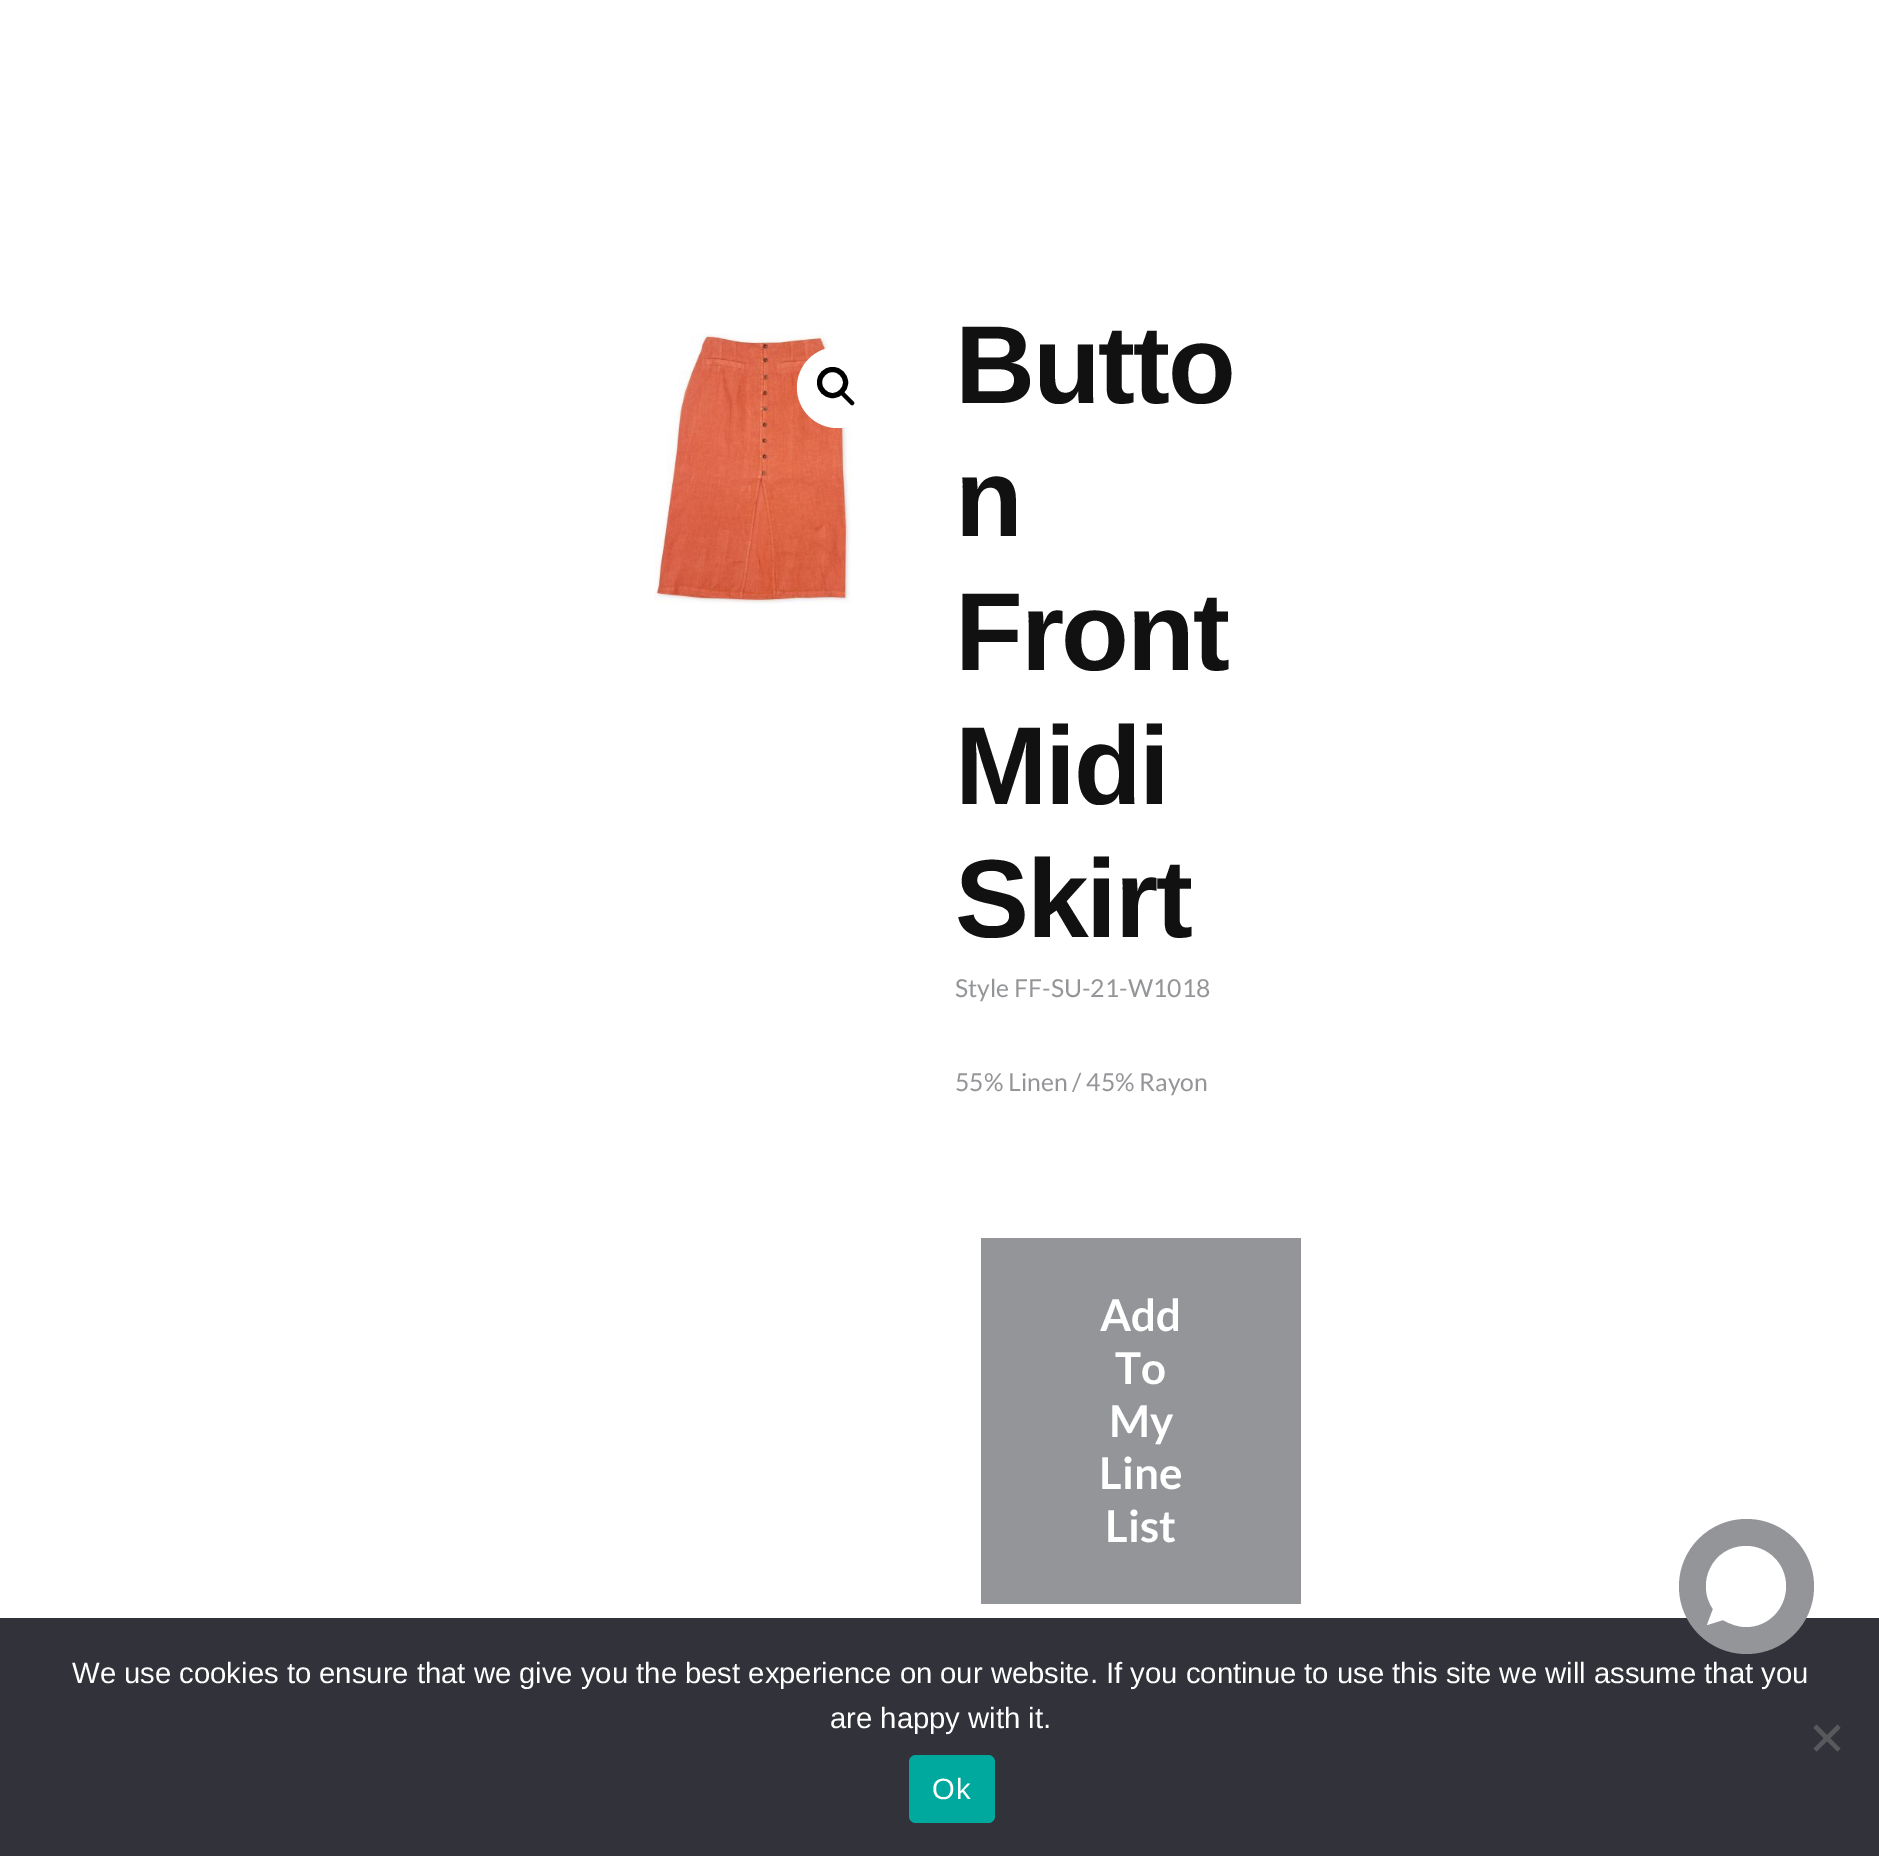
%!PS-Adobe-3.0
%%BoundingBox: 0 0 1879 1856
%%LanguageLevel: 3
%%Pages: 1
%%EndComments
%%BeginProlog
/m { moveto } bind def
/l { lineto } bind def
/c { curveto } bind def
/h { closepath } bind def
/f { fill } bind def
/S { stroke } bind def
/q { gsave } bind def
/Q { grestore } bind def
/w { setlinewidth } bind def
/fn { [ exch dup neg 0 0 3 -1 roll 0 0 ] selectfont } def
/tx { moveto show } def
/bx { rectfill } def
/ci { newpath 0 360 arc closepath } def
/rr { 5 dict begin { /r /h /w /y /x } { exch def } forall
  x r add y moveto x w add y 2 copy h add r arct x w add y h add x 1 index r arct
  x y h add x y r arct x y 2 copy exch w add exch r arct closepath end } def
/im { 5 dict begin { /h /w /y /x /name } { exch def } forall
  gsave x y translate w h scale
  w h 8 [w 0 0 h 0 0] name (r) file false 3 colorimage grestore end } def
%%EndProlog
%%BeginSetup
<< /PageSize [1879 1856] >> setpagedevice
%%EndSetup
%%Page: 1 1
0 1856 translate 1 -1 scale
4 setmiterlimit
1 setgray
0 0 1879 1856 bx
(image0.raw) 654 333 198 271 im
837.5 387.5 40.5 ci f
0 setgray
5 w
832.5 382.5 13 ci S
841 392 m 842 391 843.5 391 844 392 c 853.5 401.5 l 854.5 402.5 854.5 403.5 853.5 404.5 c 853 405.5 851.5 405.5 850.5 404.5 c 841 395 l 840 394 840 393 841 392 c h f
/LiberationSans-Bold 111 fn
0.067 setgray
955 403 m -2.25 0 (Butto) ashow
955 536 m -2.25 0 (n) ashow
955 670 m -2.25 0 (Front) ashow
955 804 m -2.25 0 (Midi) ashow
955 937 m -2.25 0 (Skirt) ashow
/Lato-Regular 24.75 fn
0.576 0.584 0.596 setrgbcolor
(Style FF-SU-21-W1018) 955 997 tx
(55% Linen / 45% Rayon) 955 1091 tx
981 1238 320 366 bx
/Lato-Bold 44 fn
1 setgray
(Add) 1100 1331 tx
(To) 1115 1384 tx
(My) 1109 1437 tx
(Line) 1099 1489 tx
(List) 1105 1542 tx
0.196 0.196 0.227 setrgbcolor
0 1618 1879 238 bx
0.576 0.584 0.596 setrgbcolor
1746.5 1586.5 67.5 ci f
q
1706 1546 81 81 rectclip
1 setgray
1746 1546 m 1713 1546 1695 1583 1713 1609 c 1707 1625 l 1723 1620 l 1730 1624 1738 1627 1746 1627 c 1768 1627 1786 1609 1786 1586 c 1786 1564 1768 1546 1746 1546 c h f
Q
/LiberationSans-Regular 29.25 fn
1 setgray
(We use cookies to ensure that we give you the best experience on our website. If you continue to use this site we will assume that you) 72 1683 tx
(are happy with it.) 830 1728 tx
0.349 0.349 0.365 setrgbcolor
1837.5 1724.5 m 1840.5 1728 l 1816.5 1751.5 l 1813.5 1748.5 l h f
1813.5 1728 m 1816.5 1724.5 l 1840.5 1748.5 l 1837.5 1751.5 l h f
0 0.663 0.616 setrgbcolor
909 1755 86 68 7 rr f
1 setgray
932 1799 m 1 0 (Ok) ashow
showpage
%%EOF
